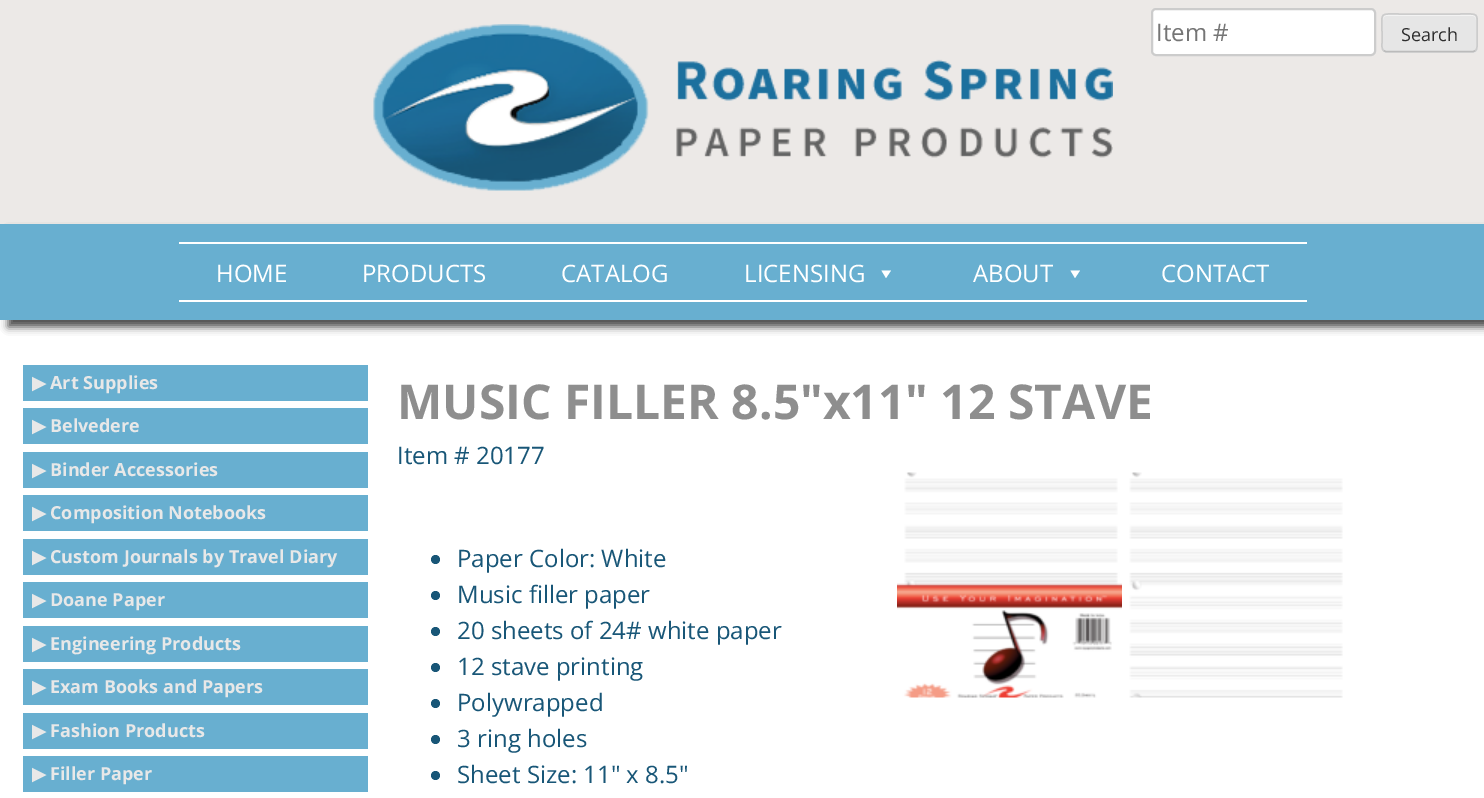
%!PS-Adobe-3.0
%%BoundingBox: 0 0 1484 798
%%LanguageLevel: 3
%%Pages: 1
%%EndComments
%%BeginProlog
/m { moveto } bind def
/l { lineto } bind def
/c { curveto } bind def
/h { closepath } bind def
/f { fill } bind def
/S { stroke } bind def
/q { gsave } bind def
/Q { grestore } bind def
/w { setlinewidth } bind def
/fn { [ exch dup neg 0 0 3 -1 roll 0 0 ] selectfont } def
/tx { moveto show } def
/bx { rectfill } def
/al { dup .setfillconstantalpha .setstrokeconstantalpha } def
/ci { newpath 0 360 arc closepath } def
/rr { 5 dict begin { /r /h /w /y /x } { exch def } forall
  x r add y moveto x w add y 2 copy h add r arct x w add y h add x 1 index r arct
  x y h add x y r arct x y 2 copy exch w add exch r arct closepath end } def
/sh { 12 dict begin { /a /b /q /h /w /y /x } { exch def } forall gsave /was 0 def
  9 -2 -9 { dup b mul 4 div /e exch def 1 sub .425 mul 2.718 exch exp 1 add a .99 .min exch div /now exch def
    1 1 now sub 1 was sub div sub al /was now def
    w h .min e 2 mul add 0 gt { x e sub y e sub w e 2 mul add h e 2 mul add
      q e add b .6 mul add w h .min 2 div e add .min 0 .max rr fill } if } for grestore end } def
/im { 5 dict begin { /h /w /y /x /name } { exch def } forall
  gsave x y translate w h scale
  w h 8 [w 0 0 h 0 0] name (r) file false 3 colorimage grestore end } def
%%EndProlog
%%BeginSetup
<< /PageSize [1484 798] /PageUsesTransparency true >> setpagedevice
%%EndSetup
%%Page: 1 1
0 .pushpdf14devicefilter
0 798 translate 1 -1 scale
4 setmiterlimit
1 setgray
0 0 1484 798 bx
0.925 0.914 0.906 setrgbcolor
0 0 1484 224 bx
(image0.raw) 373 24 740 167 im
1 setgray
1152 9 223 46 4 rr q f Q
0.8 setgray
2 w
S
/OpenSans-Regular 24 fn
0.459 setgray
(Item #) 1156 41 tx
0.902 setgray
1382 14 96 39 5 rr f
0.953 setgray
1386 16 m 1473 16 l 1475 16 1476 18 1476 20 c 1476 18 l 1476 16 1475 15 1473 15 c 1386 15 l 1384 15 1383 16 1383 18 c 1383 20 l 1383 18 1384 16 1386 16 c h f
0.733 setgray
1.5 w
1475.5 50.5 m 1473.5 51.5 l 1385.5 51.5 l 1383.5 50.5 l S
0.8 setgray
1383.5 50.5 m 1381.5 49 1382 45 1382 43 c 1382 33 l 1382 11.5 1378.5 14 1400.5 14 c 1458.5 14 l 1480.5 14 1477 11.5 1477 33 c 1477 43 l 1477 45 1477.5 49 1475.5 50.5 c S
/OpenSans-Regular 18 fn
0.18 setgray
(Search) 1401 41 tx
0 setgray
8 231 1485 96 0 4 0.7 sh
0.408 0.686 0.816 setrgbcolor
0 224 1484 96 bx
1 setgray
179 242 1128 2 bx
179 300 1128 2 bx
/OpenSans-Regular 24 fn
(HOME) 216 282 tx
(PRODUCTS) 362 282 tx
(CATALOG) 561 282 tx
(LICENSING) 744 282 tx
891 270.5 m 886 278 l 881.5 270.5 l h f
(ABOUT) 973 282 tx
1080 270.5 m 1075 278 l 1070.5 270.5 l h f
(CONTACT) 1161 282 tx
0.408 0.686 0.816 setrgbcolor
23 365 345 36 bx
/DejaVuSans-Bold 18 fn
0.91 setgray
(▶) 32 389 tx
/OpenSans-Bold 18 fn
(Art Supplies) 50 389 tx
0.408 0.686 0.816 setrgbcolor
23 408 345 36 bx
/DejaVuSans-Bold 18 fn
0.91 setgray
(▶) 32 432 tx
/OpenSans-Bold 18 fn
(Belvedere) 50 432 tx
0.408 0.686 0.816 setrgbcolor
23 452 345 36 bx
/DejaVuSans-Bold 18 fn
0.91 setgray
(▶) 32 476 tx
/OpenSans-Bold 18 fn
(Binder Accessories) 50 476 tx
0.408 0.686 0.816 setrgbcolor
23 495 345 36 bx
/DejaVuSans-Bold 18 fn
0.91 setgray
(▶) 32 519 tx
/OpenSans-Bold 18 fn
(Composition Notebooks) 50 519 tx
0.408 0.686 0.816 setrgbcolor
23 539 345 36 bx
/DejaVuSans-Bold 18 fn
0.91 setgray
(▶) 32 563 tx
/OpenSans-Bold 18 fn
(Custom Journals by Travel Diary) 50 563 tx
0.408 0.686 0.816 setrgbcolor
23 582 345 36 bx
/DejaVuSans-Bold 18 fn
0.91 setgray
(▶) 32 606 tx
/OpenSans-Bold 18 fn
(Doane Paper) 50 606 tx
0.408 0.686 0.816 setrgbcolor
23 626 345 36 bx
/DejaVuSans-Bold 18 fn
0.91 setgray
(▶) 32 650 tx
/OpenSans-Bold 18 fn
(Engineering Products) 50 650 tx
0.408 0.686 0.816 setrgbcolor
23 669 345 36 bx
/DejaVuSans-Bold 18 fn
0.91 setgray
(▶) 32 693 tx
/OpenSans-Bold 18 fn
(Exam Books and Papers) 50 693 tx
0.408 0.686 0.816 setrgbcolor
23 713 345 36 bx
/DejaVuSans-Bold 18 fn
0.91 setgray
(▶) 32 737 tx
/OpenSans-Bold 18 fn
(Fashion Products) 50 737 tx
0.408 0.686 0.816 setrgbcolor
23 756 345 36 bx
/DejaVuSans-Bold 18 fn
0.91 setgray
(▶) 32 780 tx
/OpenSans-Bold 18 fn
(Filler Paper) 50 780 tx
/OpenSans-Bold 48 fn
0.557 setgray
(MUSIC FILLER 8.5"x11" 12 STAVE) 397 419 tx
/OpenSans-Regular 24 fn
0.094 0.337 0.467 setrgbcolor
(Item # 20177) 397 464 tx
435.5 559.5 4.5 ci f
(Paper Color: White) 457 567 tx
435.5 595.5 4.5 ci f
(Music filler paper) 457 603 tx
435.5 631.5 4.5 ci f
(20 sheets of 24# white paper) 457 639 tx
435.5 667.5 4.5 ci f
(12 stave printing) 457 675 tx
435.5 703.5 4.5 ci f
(Polywrapped) 457 711 tx
435.5 739.5 4.5 ci f
(3 ring holes) 457 747 tx
435.5 775.5 4.5 ci f
(Sheet Size: 11" x 8.5") 457 783 tx
(image1.raw) 897 472 225 226 im
(image2.raw) 1129 472 214 226 im
.poppdf14devicefilter showpage
%%EOF
